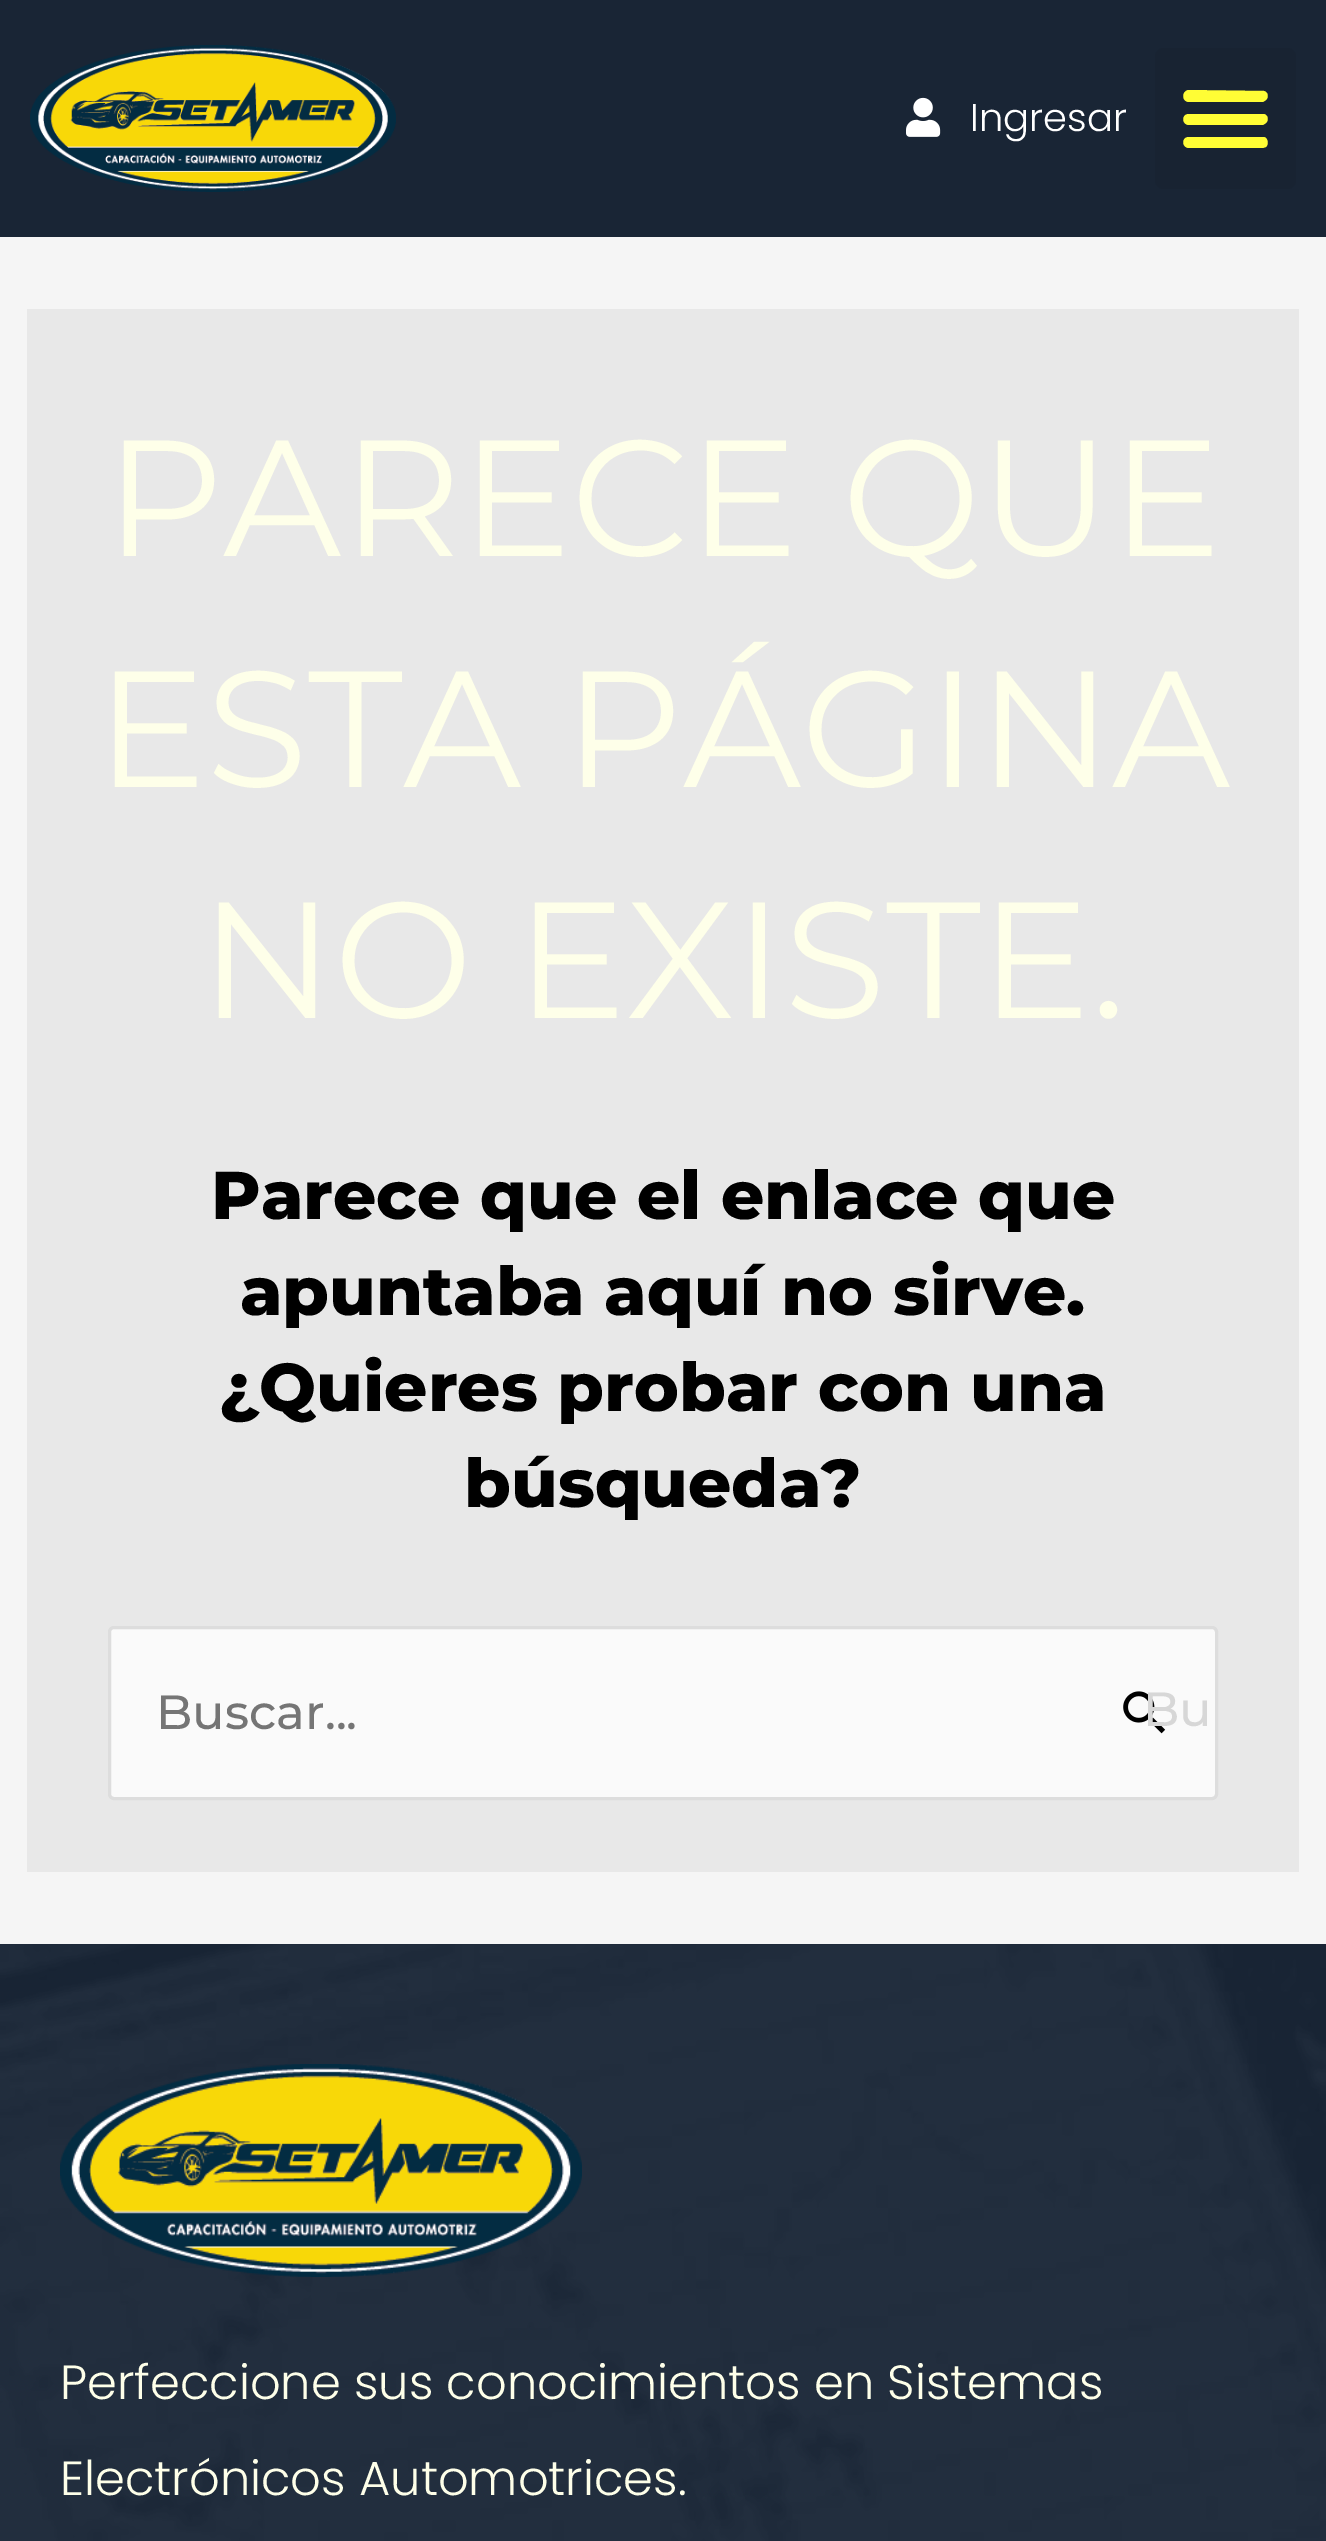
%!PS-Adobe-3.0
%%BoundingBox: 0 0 1326 2541
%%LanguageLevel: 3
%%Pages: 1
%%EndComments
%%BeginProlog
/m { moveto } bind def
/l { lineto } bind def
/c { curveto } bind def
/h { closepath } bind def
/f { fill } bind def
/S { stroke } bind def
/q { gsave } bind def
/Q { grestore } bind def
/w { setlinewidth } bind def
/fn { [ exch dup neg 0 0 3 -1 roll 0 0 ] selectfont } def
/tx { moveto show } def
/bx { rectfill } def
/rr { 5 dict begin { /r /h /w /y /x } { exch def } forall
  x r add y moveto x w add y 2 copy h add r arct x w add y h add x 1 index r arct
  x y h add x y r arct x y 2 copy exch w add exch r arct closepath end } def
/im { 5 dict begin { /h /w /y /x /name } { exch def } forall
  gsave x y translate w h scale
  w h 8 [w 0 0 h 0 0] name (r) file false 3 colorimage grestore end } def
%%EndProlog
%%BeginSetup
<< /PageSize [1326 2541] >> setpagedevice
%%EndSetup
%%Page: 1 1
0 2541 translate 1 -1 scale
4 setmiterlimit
0.961 setgray
0 0 1326 2541 bx
0.098 0.145 0.208 setrgbcolor
0 0 1326 237 bx
(image0.raw) 30 45 366 147 im
(image1.raw) 906 97 35 40 im
/Poppins-Light 38.5 fn
1 setgray
(Ingresar) 970 131 tx
0.094 0.137 0.196 setrgbcolor
1155 48 141 141 9 rr f
1 0.992 0.208 setrgbcolor
1189 102 m 1263 102 l 1266 100 l 1269 97 1268 92 1264 91 c 1188 90 l 1181 92 1182 102 1189 102 c h 1189 125 m 1263 125 l 1266 123 l 1269 120 1268 115 1264 114 c 1188 114 l 1181 115 1182 125 1189 125 c h 1189 148 m 1263 148 l 1266 147 l 1269 144 1268 138 1264 137 c 1188 137 l 1181 138 1182 148 1189 148 c h f
0.91 setgray
27 309 1272 1563 bx
/Montserrat-Regular 165 fn
0.996 1 0.914 setrgbcolor
(PARECE QUE) 105 556 tx
(ESTA PÁGINA) 96 787 tx
(NO EXISTE.) 200 1018 tx
/Montserrat-ExtraBold 67.5 fn
0 setgray
(Parece que el enlace que) 211 1219 tx
(apuntaba aquí no sirve.) 240 1315 tx
(¿Quieres probar con una) 219 1411 tx
(búsqueda?) 464 1507 tx
0.98 setgray
109.5 1627.5 1107 171 4.5 rr q f Q
0.867 setgray
3 w
S
/Montserrat-Medium 48 fn
0.459 setgray
(Buscar...) 156 1729 tx
(image2.raw) 1123 1691 43 43 im
0.843 setgray
(Bu) 1143 1726 tx
(image3.raw) 0 1944 1326 597 im
(image4.raw) 60 2064 522 213 im
/Poppins-Light 48 fn
0.996 1 0.914 setrgbcolor
(Perfeccione sus conocimientos en Sistemas) 60 2399 tx
(Electrónicos Automotrices.) 60 2495 tx
showpage
%%EOF
